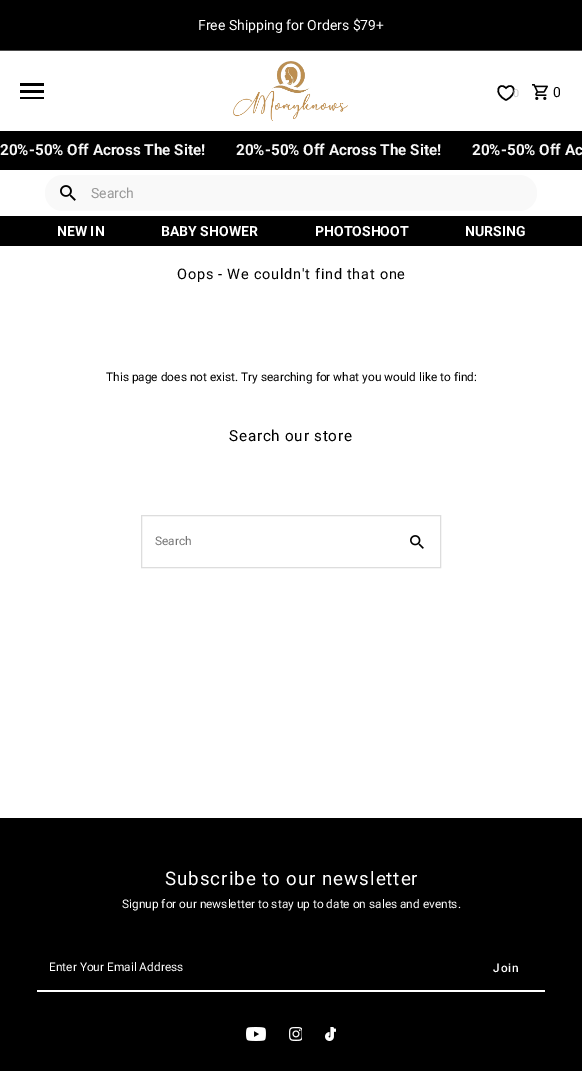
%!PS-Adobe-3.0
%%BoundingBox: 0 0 582 1071
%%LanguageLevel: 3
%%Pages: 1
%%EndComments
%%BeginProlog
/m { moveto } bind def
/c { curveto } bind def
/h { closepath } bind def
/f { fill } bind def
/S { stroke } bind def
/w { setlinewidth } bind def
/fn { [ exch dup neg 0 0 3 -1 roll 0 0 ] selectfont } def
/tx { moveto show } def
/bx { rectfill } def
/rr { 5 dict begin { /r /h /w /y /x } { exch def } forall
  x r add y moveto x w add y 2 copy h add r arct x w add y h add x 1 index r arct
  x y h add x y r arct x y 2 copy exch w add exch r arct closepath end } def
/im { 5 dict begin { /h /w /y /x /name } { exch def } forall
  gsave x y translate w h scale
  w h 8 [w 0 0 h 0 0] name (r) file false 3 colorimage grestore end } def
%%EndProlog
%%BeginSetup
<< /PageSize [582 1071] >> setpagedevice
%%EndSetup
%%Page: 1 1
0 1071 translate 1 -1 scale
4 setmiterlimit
1 setgray
0 0 582 1071 bx
0.302 setgray
0 50 582 1 bx
0 setgray
0 0 582 50 bx
/Roboto-Regular 14 fn
1 setgray
(Free Shipping for Orders $79+) 198 30 tx
0 setgray
20 97 24 2 bx
20 90 24 3 bx
20 83 24 3 bx
(image0.raw) 233 61 115 60 im
1.5 w
506 100 m 492.5 93.5 499 81 506 88 c 513 81 519.5 93.5 506 100 c h S
/Roboto-Regular 11 fn
0.796 setgray
(0) 513 97 tx
(image1.raw) 532 84 16 16 im
/Roboto-Regular 14 fn
0 setgray
553 97 m 1 0 (0) ashow
0 131 582 39 bx
/Roboto-Bold 15.25 fn
0.969 setgray
(20%-50% Off Across The Site!) 0 155 tx
(20%-50% Off Across The Site!) 236 155 tx
(20%-50% Off Ac) 472 155 tx
0.976 setgray
45 175 492 36 18 rr f
(image2.raw) 60 185 16 16 im
/Roboto-Regular 14 fn
0.6 setgray
(Search) 91 198 tx
0 setgray
0 216 582 30 bx
/Roboto-Bold 14 fn
1 setgray
(NEW IN) 57 236 tx
(BABY SHOWER) 161 236 tx
(PHOTOSHOOT) 315 236 tx
(NURSING) 465 236 tx
/Roboto-Regular 14.5 fn
0 setgray
177 279 m 0.75 0 (Oops - We couldn't find that one) ashow
/Roboto-Regular 11.9 fn
(This page does not exist. Try searching for what you would like to find:) 106 381 tx
/Roboto-Regular 15.25 fn
229 441 m 0.75 0 (Search our store) ashow
0.867 setgray
1 w
141.5 515.5 299 52 rectstroke
/Roboto-Regular 11.9 fn
0.459 setgray
(Search) 155 545 tx
(image3.raw) 410 535 14 14 im
0 setgray
0 818 582 253 bx
/Roboto-Regular 18.75 fn
1 setgray
165 885 m 0.95 0 (Subscribe to our newsletter) ashow
/Roboto-Regular 11.9 fn
(Signup for our newsletter to stay up to date on sales and events.) 122 908 tx
37 990 508 2 bx
(Enter Your Email Address) 49 971 tx
/Roboto-Medium 11.9 fn
493 972 m 1 0 (Join) ashow
(image4.raw) 246 1027 20 14 im
(image5.raw) 289 1027 13 14 im
(image6.raw) 325 1027 11 14 im
showpage
%%EOF
